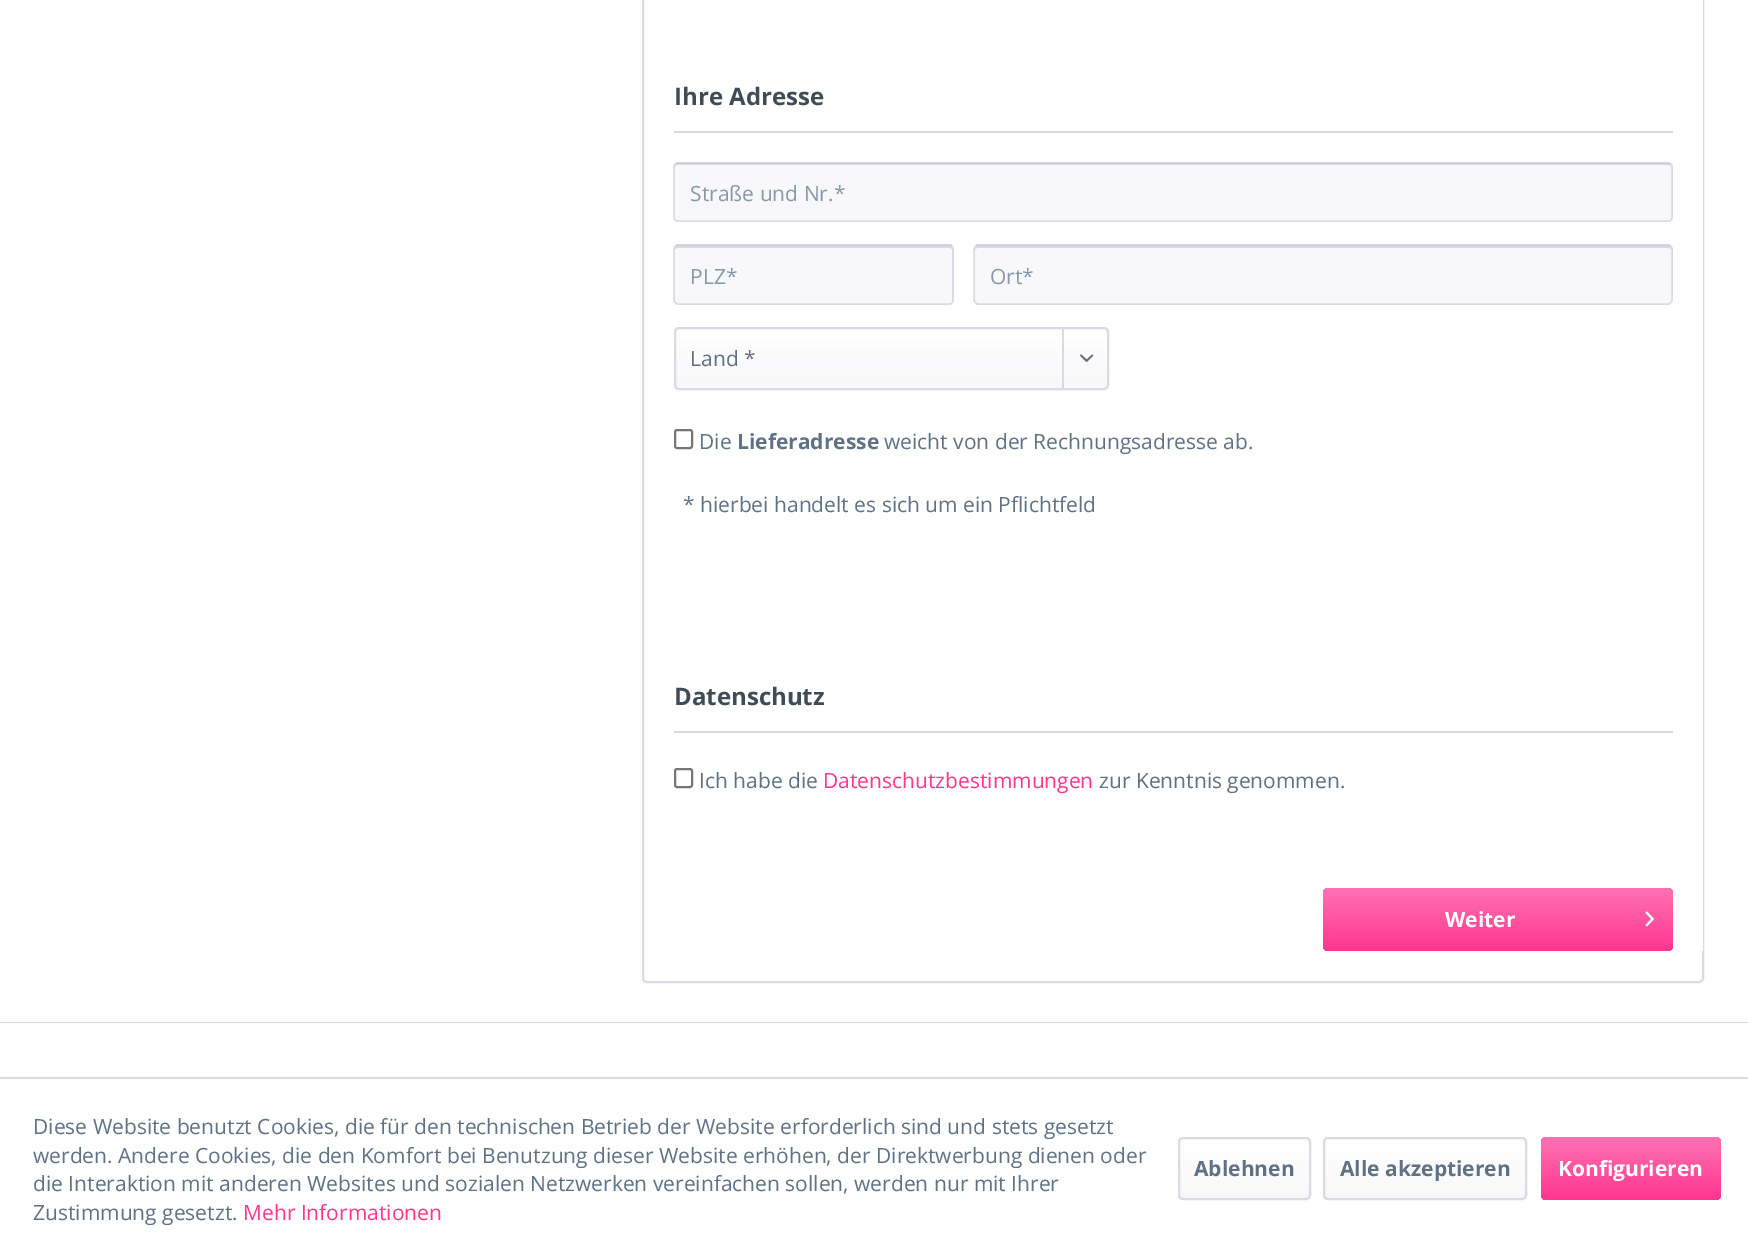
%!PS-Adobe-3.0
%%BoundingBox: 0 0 1748 1258
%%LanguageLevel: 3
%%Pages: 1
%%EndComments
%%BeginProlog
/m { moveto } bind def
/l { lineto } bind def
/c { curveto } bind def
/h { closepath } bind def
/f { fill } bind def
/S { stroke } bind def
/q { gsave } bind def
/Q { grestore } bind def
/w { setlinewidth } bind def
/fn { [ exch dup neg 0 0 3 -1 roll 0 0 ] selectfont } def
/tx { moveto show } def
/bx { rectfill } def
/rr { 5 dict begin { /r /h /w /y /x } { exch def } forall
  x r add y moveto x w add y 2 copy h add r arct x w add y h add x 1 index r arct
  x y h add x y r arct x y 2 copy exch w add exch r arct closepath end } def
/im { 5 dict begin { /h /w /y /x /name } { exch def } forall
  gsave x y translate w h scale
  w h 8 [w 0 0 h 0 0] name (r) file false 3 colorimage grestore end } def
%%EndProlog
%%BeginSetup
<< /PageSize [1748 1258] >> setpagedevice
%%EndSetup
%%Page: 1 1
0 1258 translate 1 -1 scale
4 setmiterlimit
1 setgray
0 0 1748 1258 bx
0.855 0.855 0.898 setrgbcolor
2 w
643 -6 1060 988 4 rr S
1 setgray
1702 0 1 951 bx
0.855 0.855 0.898 setrgbcolor
674 131 999 2 bx
/OpenSans-Bold 24 fn
0.247 0.298 0.345 setrgbcolor
(Ihre Adresse) 674 105 tx
0.973 0.973 0.98 setrgbcolor
674 162 999 60 5 rr f
0.855 0.855 0.898 setrgbcolor
678 165 m 1668 165 l 1670 165 1671 166 1671 168 c 1671 166 1670 164 1668 164 c 678 164 l 676 164 675 166 675 168 c 675 166 676 165 678 165 c h f
0.796 0.796 0.859 setrgbcolor
1.5 w
675.5 164 m 678 163 l 1668 163 l 1670.5 164 l S
0.855 0.855 0.898 setrgbcolor
1670.5 164 m 1671.5 164.5 1672 165.5 1672 166.5 c 1672 217.5 l 1672 218.5 1671.5 219.5 1670.5 220 c 1670 221 1669 221 1668 221 c 678 221 l 677 221 676 221 675.5 220 c 674.5 219.5 674 218.5 674 217.5 c 674 166.5 l 674 165.5 674.5 164.5 675.5 164 c S
/OpenSans-Regular 21 fn
0.529 0.596 0.663 setrgbcolor
(Straße und Nr.*) 690 201 tx
0.973 0.973 0.98 setrgbcolor
674 245 280 60 5 rr f
0.855 0.855 0.898 setrgbcolor
678 248 m 950 248 l 951 248 952 249 952 250 c 952 302 l 953 302 953 301 953 300 c 953 249 l 953 247 952 246 950 246 c 678 246 l 676 246 675 247 675 249 c 675 250 l 675 249 676 248 678 248 c h f
0.796 0.796 0.859 setrgbcolor
675.5 246.5 m 676 245.5 677 245 678 245 c 949.5 245 l 950.5 245 951.5 245.5 952 246.5 c S
0.855 0.855 0.898 setrgbcolor
952 246.5 m 953 247 953 248 953 249 c 953 300 l 953 301 953 302 952 302.5 c 951.5 303.5 950.5 304 949.5 304 c 678 304 l 677 304 676 303.5 675.5 302.5 c 674.5 302 674 301 674 300 c 674 249 l 674 248 674.5 247 675.5 246.5 c S
0.529 0.596 0.663 setrgbcolor
(PLZ*) 690 284 tx
0.973 0.973 0.98 setrgbcolor
974 245 699 60 5 rr f
0.855 0.855 0.898 setrgbcolor
978 248 m 1668 248 l 1670 248 1671 249 1671 250 c 1671 248 1670 246 1668 246 c 978 246 l 976 246 975 248 975 250 c 975 249 976 248 978 248 c h f
0.796 0.796 0.859 setrgbcolor
975.5 246.5 m 976 245.5 977 245 978 245 c 1668 245 l 1669 245 1670 245.5 1670.5 246.5 c S
0.855 0.855 0.898 setrgbcolor
1670.5 246.5 m 1671.5 247 1672 248 1672 249 c 1672 300 l 1672 301 1671.5 302 1670.5 302.5 c 1670 303.5 1669 304 1668 304 c 978 304 l 977 304 976 303.5 975.5 302.5 c 974.5 302 974 301 974 300 c 974 249 l 974 248 974.5 247 975.5 246.5 c S
0.529 0.596 0.663 setrgbcolor
(Ort*) 990 284 tx
q 675 329 432 60 3 rr clip newpath
<< /ShadingType 2 /ColorSpace /DeviceRGB /Coords [891 328 891 389] /Extend [true true] /Function << /FunctionType 2 /Domain [0 1] /C0 [1 1 1] /C1 [0.973 0.973 0.98] /N 1 >> >> shfill Q
0.855 0.855 0.898 setrgbcolor
2 w
675 328 433 61 4 rr S
0.373 0.447 0.522 setrgbcolor
(Land *) 690 366 tx
0.855 0.855 0.898 setrgbcolor
1062 329 2 60 bx
(image0.raw) 1080 354 14 8 im
0.463 setgray
675 430 17 18 2 rr S
0.373 0.447 0.522 setrgbcolor
(Die) 699 449 tx
/OpenSans-Bold 21 fn
(Lieferadresse) 737 449 tx
/OpenSans-Regular 21 fn
(weicht von der Rechnungsadresse ab.) 884 449 tx
(* hierbei handelt es sich um ein Pflichtfeld) 683 512 tx
0.855 0.855 0.898 setrgbcolor
674 731 999 2 bx
/OpenSans-Bold 24 fn
0.247 0.298 0.345 setrgbcolor
(Datenschutz) 674 705 tx
0.463 setgray
675 769 17 18 2 rr S
/OpenSans-Regular 21 fn
0.373 0.447 0.522 setrgbcolor
(Ich habe die) 699 788 tx
1 0.208 0.565 setrgbcolor
(Datenschutzbestimmungen) 823 788 tx
0.373 0.447 0.522 setrgbcolor
(zur Kenntnis genommen.) 1099 788 tx
q 1323 888 350 63 5 rr clip newpath
<< /ShadingType 2 /ColorSpace /DeviceRGB /Coords [1498 888 1498 951] /Extend [true true] /Function << /FunctionType 2 /Domain [0 1] /C0 [1 0.447 0.698] /C1 [1 0.208 0.565] /N 1 >> >> shfill Q
/OpenSans-Bold 21 fn
1 setgray
(Weiter) 1445 927 tx
(image1.raw) 1645 911 9 16 im
0.855 0.855 0.898 setrgbcolor
0 1022 1748 1 bx
0 1077 1748 2 bx
/OpenSans-Regular 21 fn
0.373 0.447 0.522 setrgbcolor
(Diese Website benutzt Cookies, die für den technischen Betrieb der Website erforderlich sind und stets gesetzt) 33 1134 tx
(werden. Andere Cookies, die den Komfort bei Benutzung dieser Website erhöhen, der Direktwerbung dienen oder) 33 1163 tx
(die Interaktion mit anderen Websites und sozialen Netzwerken vereinfachen sollen, werden nur mit Ihrer) 33 1191 tx
(Zustimmung gesetzt.) 33 1220 tx
1 0.208 0.565 setrgbcolor
(Mehr Informationen) 243 1220 tx
q 1179 1139 131 60 3 rr clip newpath
<< /ShadingType 2 /ColorSpace /DeviceRGB /Coords [1244 1139 1244 1199] /Extend [true true] /Function << /FunctionType 2 /Domain [0 1] /C0 [1 1 1] /C1 [0.973 0.973 0.98] /N 1 >> >> shfill Q
0.855 0.855 0.898 setrgbcolor
1179 1138 131 61 4 rr S
/OpenSans-Bold 21 fn
0.373 0.447 0.522 setrgbcolor
(Ablehnen) 1194 1176 tx
q 1325 1139 201 60 3 rr clip newpath
<< /ShadingType 2 /ColorSpace /DeviceRGB /Coords [1425 1139 1425 1199] /Extend [true true] /Function << /FunctionType 2 /Domain [0 1] /C0 [1 1 1] /C1 [0.973 0.973 0.98] /N 1 >> >> shfill Q
0.855 0.855 0.898 setrgbcolor
1324 1138 202 61 4 rr S
0.373 0.447 0.522 setrgbcolor
(Alle akzeptieren) 1340 1176 tx
q 1541 1137 180 63 5 rr clip newpath
<< /ShadingType 2 /ColorSpace /DeviceRGB /Coords [1631 1137 1631 1200] /Extend [true true] /Function << /FunctionType 2 /Domain [0 1] /C0 [1 0.447 0.698] /C1 [1 0.208 0.565] /N 1 >> >> shfill Q
1 setgray
(Konfigurieren) 1558 1176 tx
showpage
%%EOF
